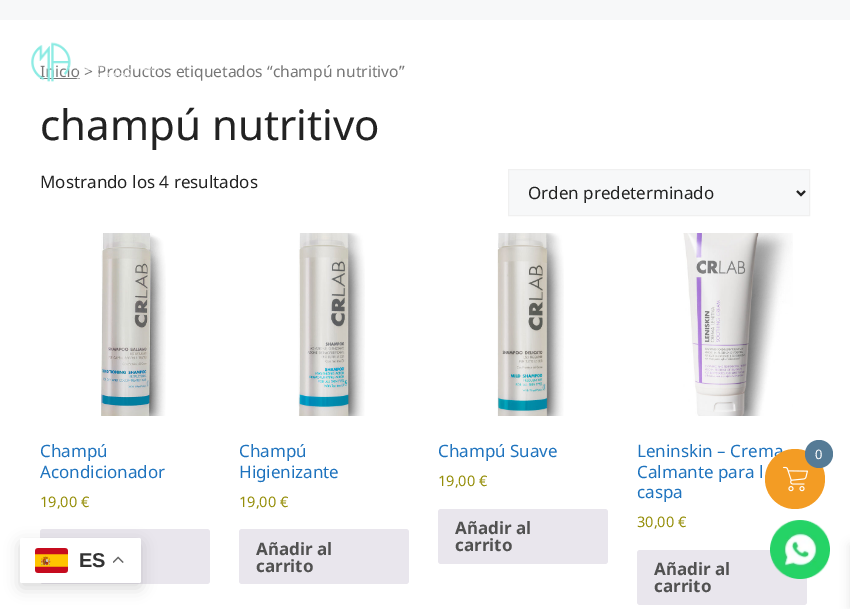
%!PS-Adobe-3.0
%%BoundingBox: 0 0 850 609
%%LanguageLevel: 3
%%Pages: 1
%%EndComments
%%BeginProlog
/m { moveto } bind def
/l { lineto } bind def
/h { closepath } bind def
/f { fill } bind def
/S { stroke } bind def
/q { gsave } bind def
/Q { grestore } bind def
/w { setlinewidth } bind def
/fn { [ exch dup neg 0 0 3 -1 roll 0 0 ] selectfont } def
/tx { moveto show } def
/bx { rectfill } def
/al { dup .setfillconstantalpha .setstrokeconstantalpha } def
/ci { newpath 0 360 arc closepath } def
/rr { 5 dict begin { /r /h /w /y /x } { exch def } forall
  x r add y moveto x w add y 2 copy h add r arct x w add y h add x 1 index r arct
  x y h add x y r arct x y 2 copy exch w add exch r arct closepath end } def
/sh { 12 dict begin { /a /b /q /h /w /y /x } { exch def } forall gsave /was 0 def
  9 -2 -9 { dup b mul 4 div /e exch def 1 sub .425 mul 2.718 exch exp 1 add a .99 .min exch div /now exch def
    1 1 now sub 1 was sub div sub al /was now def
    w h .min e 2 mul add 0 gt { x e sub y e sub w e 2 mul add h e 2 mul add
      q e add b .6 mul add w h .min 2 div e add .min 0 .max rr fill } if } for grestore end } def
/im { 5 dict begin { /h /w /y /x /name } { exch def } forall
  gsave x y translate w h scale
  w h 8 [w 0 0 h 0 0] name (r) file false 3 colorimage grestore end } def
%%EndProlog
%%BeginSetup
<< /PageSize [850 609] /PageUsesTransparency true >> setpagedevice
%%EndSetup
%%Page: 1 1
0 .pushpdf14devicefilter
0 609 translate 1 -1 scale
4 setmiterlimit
0.969 0.973 0.976 setrgbcolor
0 0 850 609 bx
1 setgray
0 20 850 589 bx
0.463 setgray
40 78 40 1 bx
/NotoSans-Regular 15.6 fn
(Inicio > Productos etiquetados “champú nutritivo”) 40 77 tx
(image0.raw) 31 42 128 40 im
/NotoSans-Regular 42 fn
0.133 setgray
(champú nutritivo) 40 140 tx
/NotoSans-Regular 17 fn
(Mostrando los 4 resultados) 40 188 tx
0.969 0.973 0.976 setrgbcolor
508.5 169.5 m 809.5 169.5 l 809.5 215.5 l 508.5 215.5 l h q f Q
0.941 setgray
S
0.133 setgray
2 w
797 191 m 801 195 l 805 191 l S
(Orden predeterminado) 528 199 tx
(image1.raw) 101 233 65 183 im
0.118 0.451 0.745 setrgbcolor
(Champú) 40 457 tx
(Acondicionador) 40 478 tx
/NotoSans-Regular 14.5 fn
0.584 0.557 0.035 setrgbcolor
(19,00 €) 40 507 tx
0.914 0.902 0.929 setrgbcolor
40 529 170 55 3 rr f
(image2.raw) 298 233 67 183 im
/NotoSans-Regular 17 fn
0.118 0.451 0.745 setrgbcolor
(Champú) 239 457 tx
(Higienizante) 239 478 tx
/NotoSans-Regular 14.5 fn
0.584 0.557 0.035 setrgbcolor
(19,00 €) 239 507 tx
0.914 0.902 0.929 setrgbcolor
239 529 170 55 3 rr f
/NotoSans-Bold 17 fn
0.318 setgray
(Añadir al) 256 555 tx
(carrito) 256 572 tx
(image3.raw) 497 233 67 183 im
/NotoSans-Regular 17 fn
0.118 0.451 0.745 setrgbcolor
(Champú Suave) 438 457 tx
/NotoSans-Regular 14.5 fn
0.584 0.557 0.035 setrgbcolor
(19,00 €) 438 486 tx
0.914 0.902 0.929 setrgbcolor
438 509 170 55 3 rr f
/NotoSans-Bold 17 fn
0.318 setgray
(Añadir al) 455 534 tx
(carrito) 455 551 tx
(image4.raw) 683 233 110 183 im
/NotoSans-Regular 17 fn
0.118 0.451 0.745 setrgbcolor
(Leninskin – Crema) 637 457 tx
(Calmante para l) 637 478 tx
(caspa) 637 498 tx
/NotoSans-Regular 14.5 fn
0.584 0.557 0.035 setrgbcolor
(30,00 €) 637 527 tx
0.914 0.902 0.929 setrgbcolor
637 550 170 55 3 rr f
/NotoSans-Bold 17 fn
0.318 setgray
(Añadir al) 654 575 tx
(carrito) 654 592 tx
0.953 0.612 0.141 setrgbcolor
795 479 30 ci f
(image5.raw) 783 466 25 26 im
0.333 0.482 0.588 setrgbcolor
819 454 14 ci f
/NotoSans-Regular 13 fn
1 setgray
(0) 815 459 tx
0 setgray
850 545 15 63 0 5 0.1 sh
20 543 121 45 2 7.5 0.15 sh
1 setgray
20 538 121 45 2 rr f
(image6.raw) 35 548 33 25 im
/LiberationSans-Bold 20 fn
0.2 setgray
(ES) 79 567 tx
(image7.raw) 113 556 11 7 im
(image8.raw) 770 520 60 59 im
.poppdf14devicefilter showpage
%%EOF
